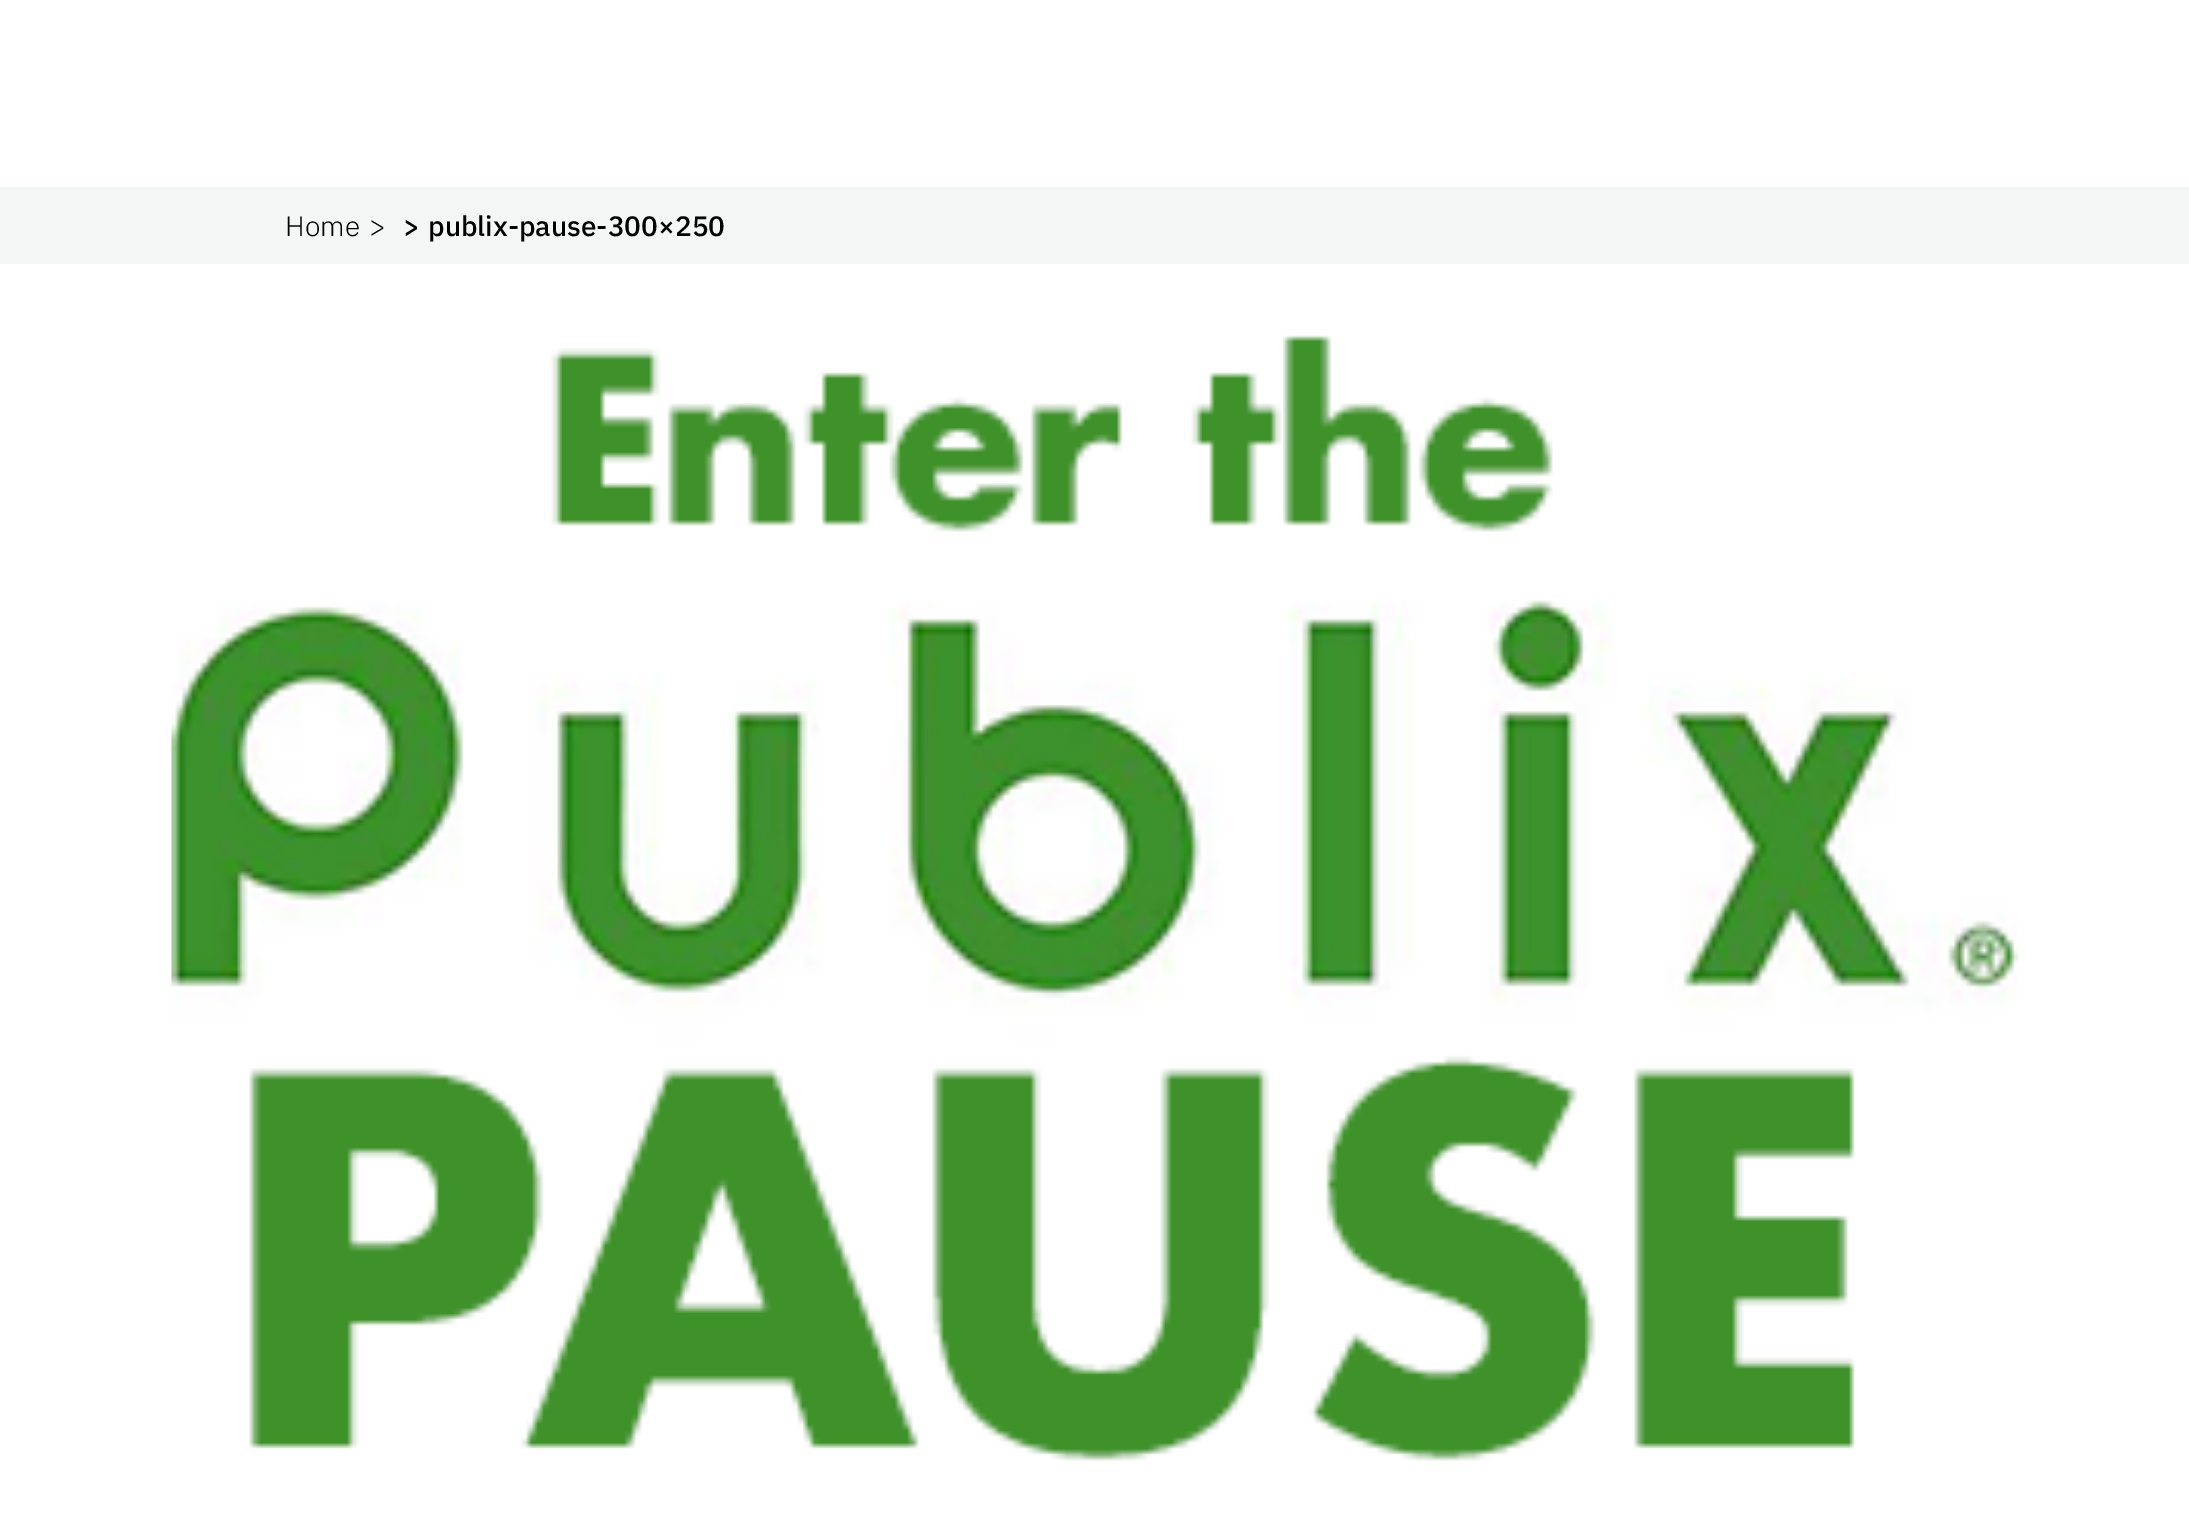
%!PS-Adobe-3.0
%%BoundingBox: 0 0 2189 1525
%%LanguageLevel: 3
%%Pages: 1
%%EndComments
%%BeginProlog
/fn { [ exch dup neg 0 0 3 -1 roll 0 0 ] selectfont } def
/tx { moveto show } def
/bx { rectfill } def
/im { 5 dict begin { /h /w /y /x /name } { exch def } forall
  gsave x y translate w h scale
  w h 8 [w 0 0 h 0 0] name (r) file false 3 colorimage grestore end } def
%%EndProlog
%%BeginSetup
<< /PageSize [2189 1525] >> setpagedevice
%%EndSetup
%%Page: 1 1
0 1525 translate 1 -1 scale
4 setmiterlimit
1 setgray
0 0 2189 1525 bx
0.957 0.965 0.965 setrgbcolor
0 187 2189 77 bx
/IBMPlexSans-Light 28 fn
0 setgray
(Home) 285 236 tx
(>) 369 236 tx
/IBMPlexSans-Medium 28 fn
(>) 403 236 tx
(publix-pause-300×250) 428 236 tx
(image0.raw) 171 335 1847 1126 im
showpage
%%EOF
